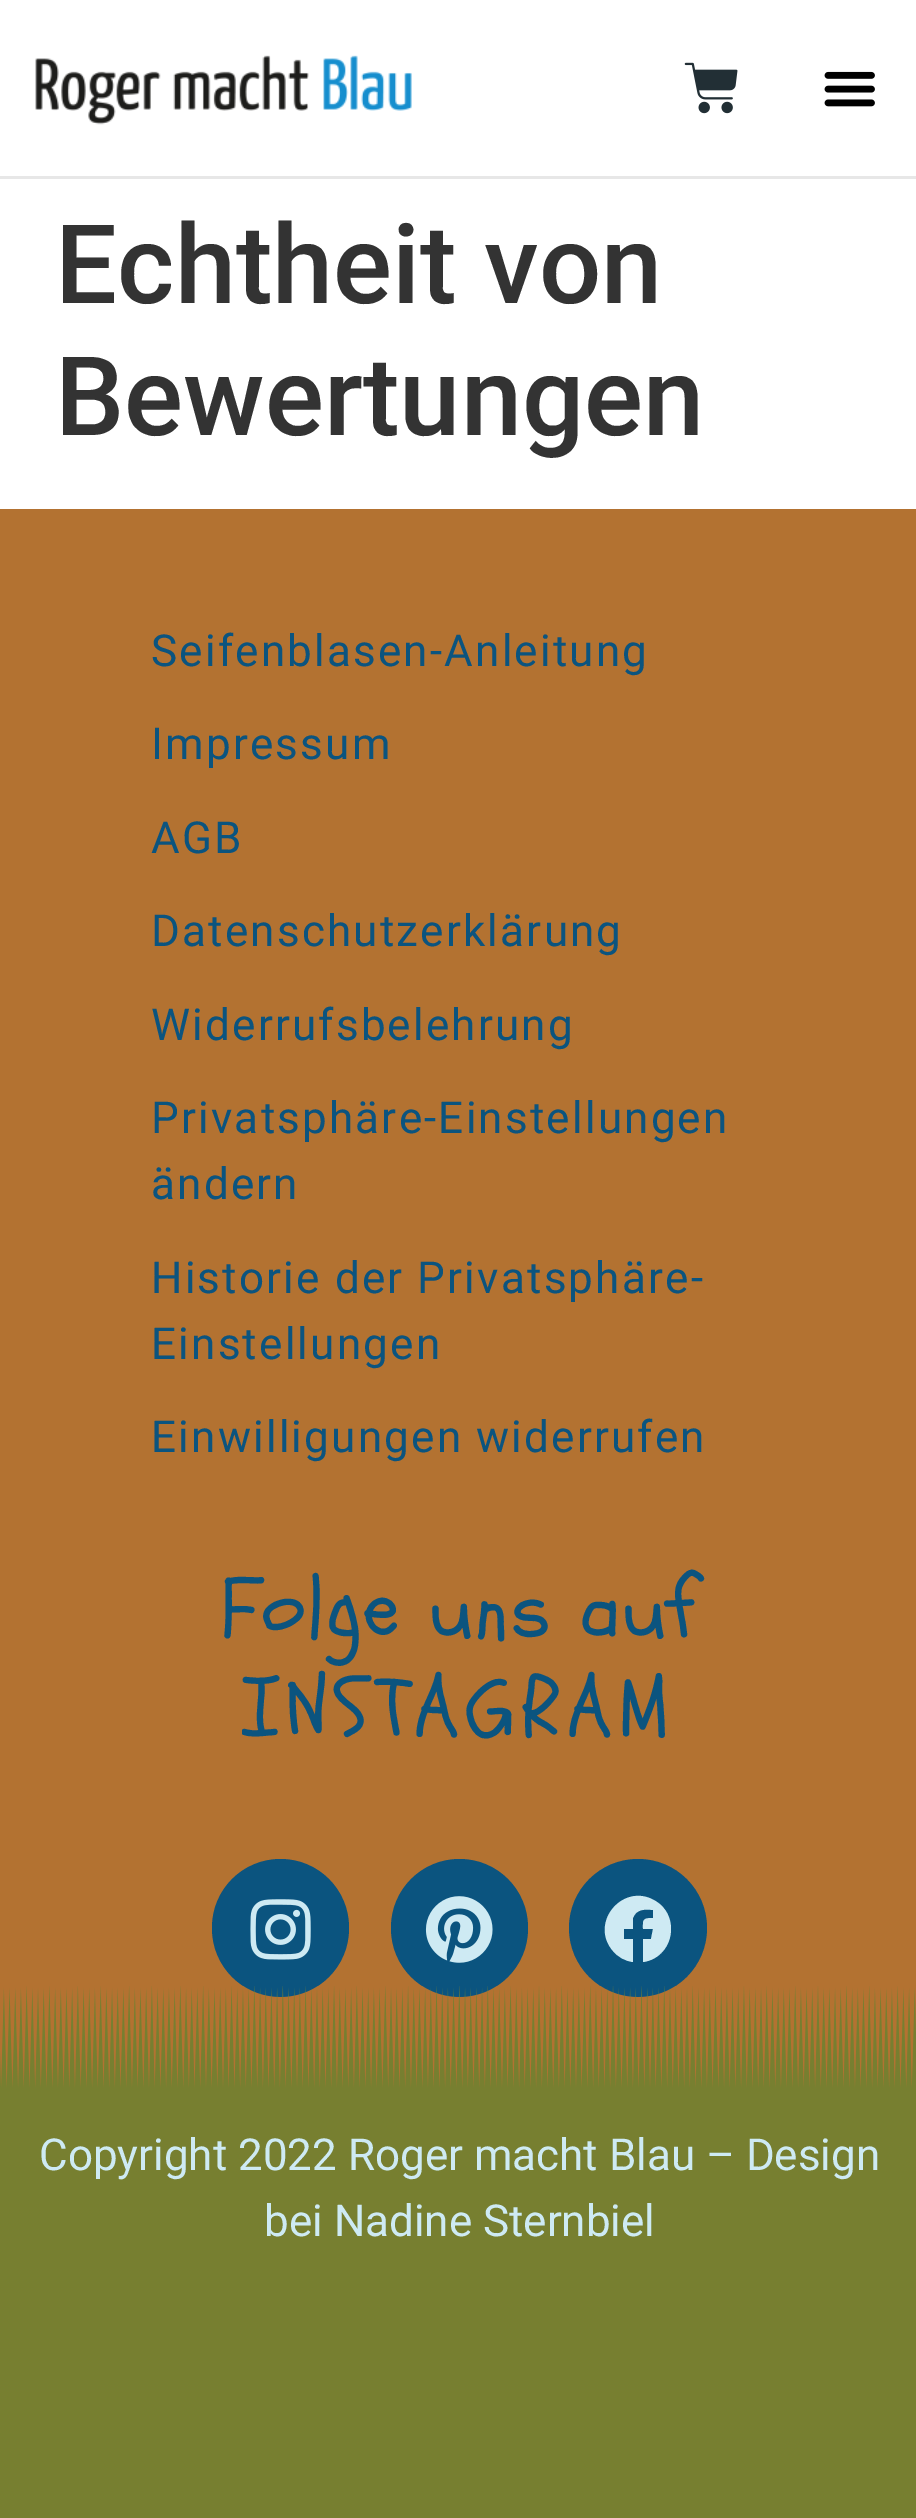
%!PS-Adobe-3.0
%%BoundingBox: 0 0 916 2518
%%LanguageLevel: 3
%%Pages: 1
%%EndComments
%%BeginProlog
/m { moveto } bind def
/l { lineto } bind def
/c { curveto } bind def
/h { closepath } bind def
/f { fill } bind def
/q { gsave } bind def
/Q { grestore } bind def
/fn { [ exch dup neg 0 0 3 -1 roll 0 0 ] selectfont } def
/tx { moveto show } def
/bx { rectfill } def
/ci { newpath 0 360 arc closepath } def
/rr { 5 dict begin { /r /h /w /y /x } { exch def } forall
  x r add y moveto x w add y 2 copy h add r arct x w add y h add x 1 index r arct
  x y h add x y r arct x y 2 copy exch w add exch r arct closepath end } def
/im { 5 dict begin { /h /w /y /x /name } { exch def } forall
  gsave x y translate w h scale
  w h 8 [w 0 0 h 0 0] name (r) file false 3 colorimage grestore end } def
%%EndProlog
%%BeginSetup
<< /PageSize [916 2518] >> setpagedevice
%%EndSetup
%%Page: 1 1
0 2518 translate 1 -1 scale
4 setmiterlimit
1 setgray
0 0 916 2518 bx
0.906 setgray
0 176 916 3 bx
(image0.raw) 35 55 377 70 im
(image1.raw) 684 62 54 52 im
(image2.raw) 824 71 51 36 im
/Roboto-Medium 110 fn
0.2 setgray
(Echtheit von) 55 303 tx
(Bewertungen) 55 435 tx
0.702 0.447 0.192 setrgbcolor
0 509 916 1579 bx
/Roboto-Regular 44 fn
0.043 0.329 0.498 setrgbcolor
151 666 m 2.2 0 (Seifenblasen-Anleitung) ashow
151 759 m 2.2 0 (Impressum) ashow
151 853 m 2.2 0 (AGB) ashow
151 946 m 2.2 0 (Datenschutzerklärung) ashow
151 1040 m 2.2 0 (Widerrufsbelehrung) ashow
151 1133 m 2.2 0 (Privatsphäre-Einstellungen) ashow
151 1199 m 2.2 0 (ändern) ashow
151 1293 m 2.2 0 (Historie der Privatsphäre-) ashow
151 1359 m 2.2 0 (Einstellungen) ashow
151 1452 m 2.2 0 (Einwilligungen widerrufen) ashow
/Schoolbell-Regular 82.5 fn
221 1636 m 2.2 0 (Folge uns auf) ashow
q
242 1661 435 99 rectclip
242 1735 m 7.25 0 (I) ashow
Q
286 1735 m 7.25 0 (NSTAGRAM) ashow
212 1859 137 138 68.5 rr f
(image3.raw) 250 1899 61 61 im
391 1859 137 138 68.5 rr f
(image4.raw) 425 1896 68 67 im
638 1928 69 ci f
0.808 0.918 0.953 setrgbcolor
671 1929 m 671 1946 659 1960 643 1962 c 643 1939 l 651 1939 l 653 1929 l 643 1929 l 643 1920 642 1918 653 1918 c 653 1910 l 645 1909 636 1909 633 1918 c 633 1929 l 624 1929 l 624 1939 l 633 1939 l 633 1962 l 625 1961 618 1957 613 1951 c 588 1922 625 1880 657 1902 c 666 1908 671 1918 671 1929 c h f
(image5.raw) 0 1986 916 107 im
0.467 0.498 0.188 setrgbcolor
0 2093 916 425 bx
/Roboto-Regular 44 fn
0.808 0.918 0.953 setrgbcolor
(Copyright 2022 Roger macht Blau – Design) 39 2170 tx
(bei Nadine Sternbiel) 264 2236 tx
showpage
%%EOF
